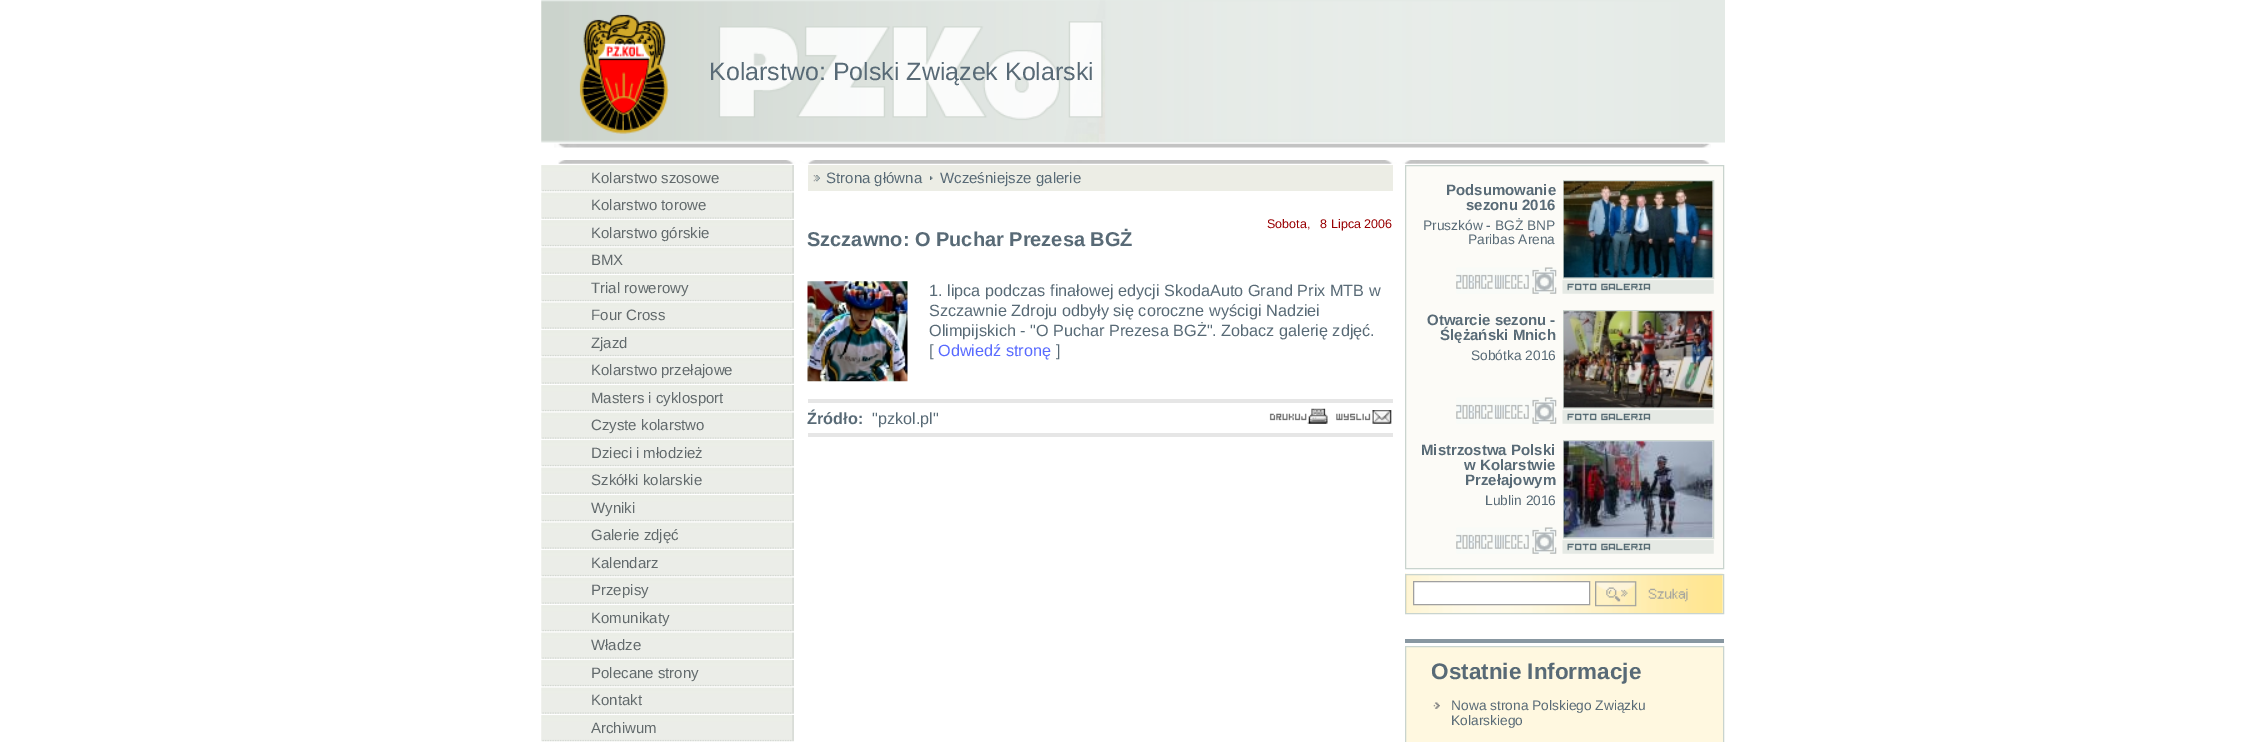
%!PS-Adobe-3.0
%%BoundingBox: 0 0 2264 742
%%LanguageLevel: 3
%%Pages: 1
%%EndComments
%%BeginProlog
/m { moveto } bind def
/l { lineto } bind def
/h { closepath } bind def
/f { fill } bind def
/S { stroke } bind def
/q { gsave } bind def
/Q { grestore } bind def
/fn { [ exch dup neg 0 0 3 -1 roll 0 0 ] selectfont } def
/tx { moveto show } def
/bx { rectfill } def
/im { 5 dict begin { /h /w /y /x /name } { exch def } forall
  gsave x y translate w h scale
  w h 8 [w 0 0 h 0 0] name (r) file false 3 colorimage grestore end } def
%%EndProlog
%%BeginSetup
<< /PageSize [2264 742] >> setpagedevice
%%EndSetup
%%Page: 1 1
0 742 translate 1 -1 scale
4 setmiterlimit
1 setgray
0 0 2264 742 bx
(image0.raw) 554 143 1157 5 im
(image1.raw) 541 0 1184 143 im
/LiberationSans-Regular 25 fn
0.345 0.416 0.463 setrgbcolor
(Kolarstwo: Polski Związek Kolarski) 709 80 tx
(image2.raw) 558 160 1152 4 im
(image3.raw) 541 165 253 27 im
/LiberationSans-Regular 15 fn
0.384 0.416 0.424 setrgbcolor
(Kolarstwo szosowe) 591 183 tx
(image4.raw) 541 192 253 27 im
(Kolarstwo torowe) 591 210 tx
(image3.raw) 541 220 253 27 im
(Kolarstwo górskie) 591 238 tx
(image4.raw) 541 247 253 27 im
(BMX) 591 265 tx
(image3.raw) 541 275 253 27 im
(Trial rowerowy) 591 293 tx
(image4.raw) 541 302 253 27 im
(Four Cross) 591 320 tx
(image3.raw) 541 330 253 27 im
(Zjazd) 591 348 tx
(image4.raw) 541 357 253 27 im
(Kolarstwo przełajowe) 591 375 tx
(image3.raw) 541 385 253 27 im
(Masters i cyklosport) 591 403 tx
(image4.raw) 541 412 253 27 im
(Czyste kolarstwo) 591 430 tx
(image3.raw) 541 440 253 27 im
(Dzieci i młodzież) 591 458 tx
(image4.raw) 541 467 253 27 im
(Szkółki kolarskie) 591 485 tx
(image3.raw) 541 495 253 27 im
(Wyniki) 591 513 tx
(image4.raw) 541 522 253 27 im
(Galerie zdjęć) 591 540 tx
(image3.raw) 541 550 253 27 im
(Kalendarz) 591 568 tx
(image5.raw) 541 577 253 27 im
(Przepisy) 591 595 tx
(image3.raw) 541 605 253 27 im
(Komunikaty) 591 623 tx
(image4.raw) 541 632 253 27 im
(Władze) 591 650 tx
(image3.raw) 541 660 253 27 im
(Polecane strony) 591 678 tx
(image4.raw) 541 687 253 27 im
(Kontakt) 591 705 tx
(image3.raw) 541 715 253 27 im
(Archiwum) 591 733 tx
0.925 0.929 0.898 setrgbcolor
808 165 585 26 bx
(image6.raw) 813 175 7 7 im
0.345 0.416 0.463 setrgbcolor
(Strona główna) 826 183 tx
(image7.raw) 930 176 3 4 im
(Wcześniejsze galerie) 940 183 tx
/LiberationSans-Regular 12.5 fn
0.6 0 0.008 setrgbcolor
(Sobota,   8 Lipca 2006) 1267 228 tx
/LiberationSans-Bold 20 fn
0.345 0.416 0.463 setrgbcolor
(Szczawno: O Puchar Prezesa BGŻ) 807 246 tx
(image8.raw) 807 281 101 101 im
/LiberationSans-Regular 16.25 fn
(1. lipca podczas finałowej edycji SkodaAuto Grand Prix MTB w) 929 296 tx
(Szczawnie Zdroju odbyły się coroczne wyścigi Nadziei) 929 316 tx
(Olimpijskich - "O Puchar Prezesa BGŻ". Zobacz galerię zdjęć.) 929 336 tx
([) 929 356 tx
0.345 0.416 1 setrgbcolor
(Odwiedź stronę) 938 356 tx
0.345 0.416 0.463 setrgbcolor
(]) 1056 356 tx
0.902 setgray
808 399 585 4 bx
808 433 585 4 bx
/LiberationSans-Bold 16.25 fn
0.345 0.416 0.463 setrgbcolor
(Źródło:) 807 424 tx
/LiberationSans-Regular 16.25 fn
("pzkol.pl") 872 424 tx
(image9.raw) 1269 408 59 16 im
(image10.raw) 1336 410 56 14 im
0.988 0.984 0.969 setrgbcolor
1405.5 165.5 m 1723.5 165.5 l 1723.5 568.5 l 1405.5 568.5 l h q f Q
0.788 0.831 0.808 setrgbcolor
S
(image11.raw) 1456 267 101 27 im
/LiberationSans-Bold 15 fn
0.345 0.416 0.463 setrgbcolor
(Podsumowanie) 1446 195 tx
(sezonu 2016) 1466 210 tx
/LiberationSans-Regular 13.75 fn
(Pruszków - BGŻ BNP) 1423 230 tx
(Paribas Arena) 1468 244 tx
0.796 0.835 0.812 setrgbcolor
1563.5 180.5 150 98 rectstroke
(image12.raw) 1563 181 150 97 im
(image13.raw) 1562 278 152 16 im
(image11.raw) 1456 397 101 27 im
/LiberationSans-Bold 15 fn
0.345 0.416 0.463 setrgbcolor
(Otwarcie sezonu -) 1427 325 tx
(Ślężański Mnich) 1440 340 tx
/LiberationSans-Regular 13.75 fn
(Sobótka 2016) 1471 360 tx
0.796 0.835 0.812 setrgbcolor
1563.5 310.5 150 98 rectstroke
(image14.raw) 1563 311 150 97 im
(image13.raw) 1562 408 152 16 im
(image11.raw) 1456 527 101 27 im
/LiberationSans-Bold 15 fn
0.345 0.416 0.463 setrgbcolor
(Mistrzostwa Polski) 1421 455 tx
(w Kolarstwie) 1464 470 tx
(Przełajowym) 1465 485 tx
/LiberationSans-Regular 13.75 fn
(Lublin 2016) 1485 505 tx
0.796 0.835 0.812 setrgbcolor
1563.5 440.5 150 98 rectstroke
(image15.raw) 1563 441 150 97 im
(image13.raw) 1562 538 152 16 im
(image16.raw) 1405 573 319 40 im
0.788 0.831 0.808 setrgbcolor
1405.5 574.5 318 39 rectstroke
1 setgray
1413.5 581.5 m 1589.5 581.5 l 1589.5 604.5 l 1413.5 604.5 l h q f Q
0.627 setgray
S
(image17.raw) 1595 581 93 26 im
0.533 0.592 0.631 setrgbcolor
1405 639 319 4 bx
1 0.973 0.878 setrgbcolor
1405.5 646.5 m 1723.5 646.5 l 1723.5 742.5 l 1405.5 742.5 l h q f Q
0.788 0.831 0.808 setrgbcolor
S
/LiberationSans-Bold 22.5 fn
0.345 0.416 0.463 setrgbcolor
(Ostatnie Informacje) 1431 679 tx
(image18.raw) 1433 702 7 7 im
/LiberationSans-Regular 13.75 fn
(Nowa strona Polskiego Związku) 1451 710 tx
(Kolarskiego) 1451 725 tx
showpage
%%EOF
